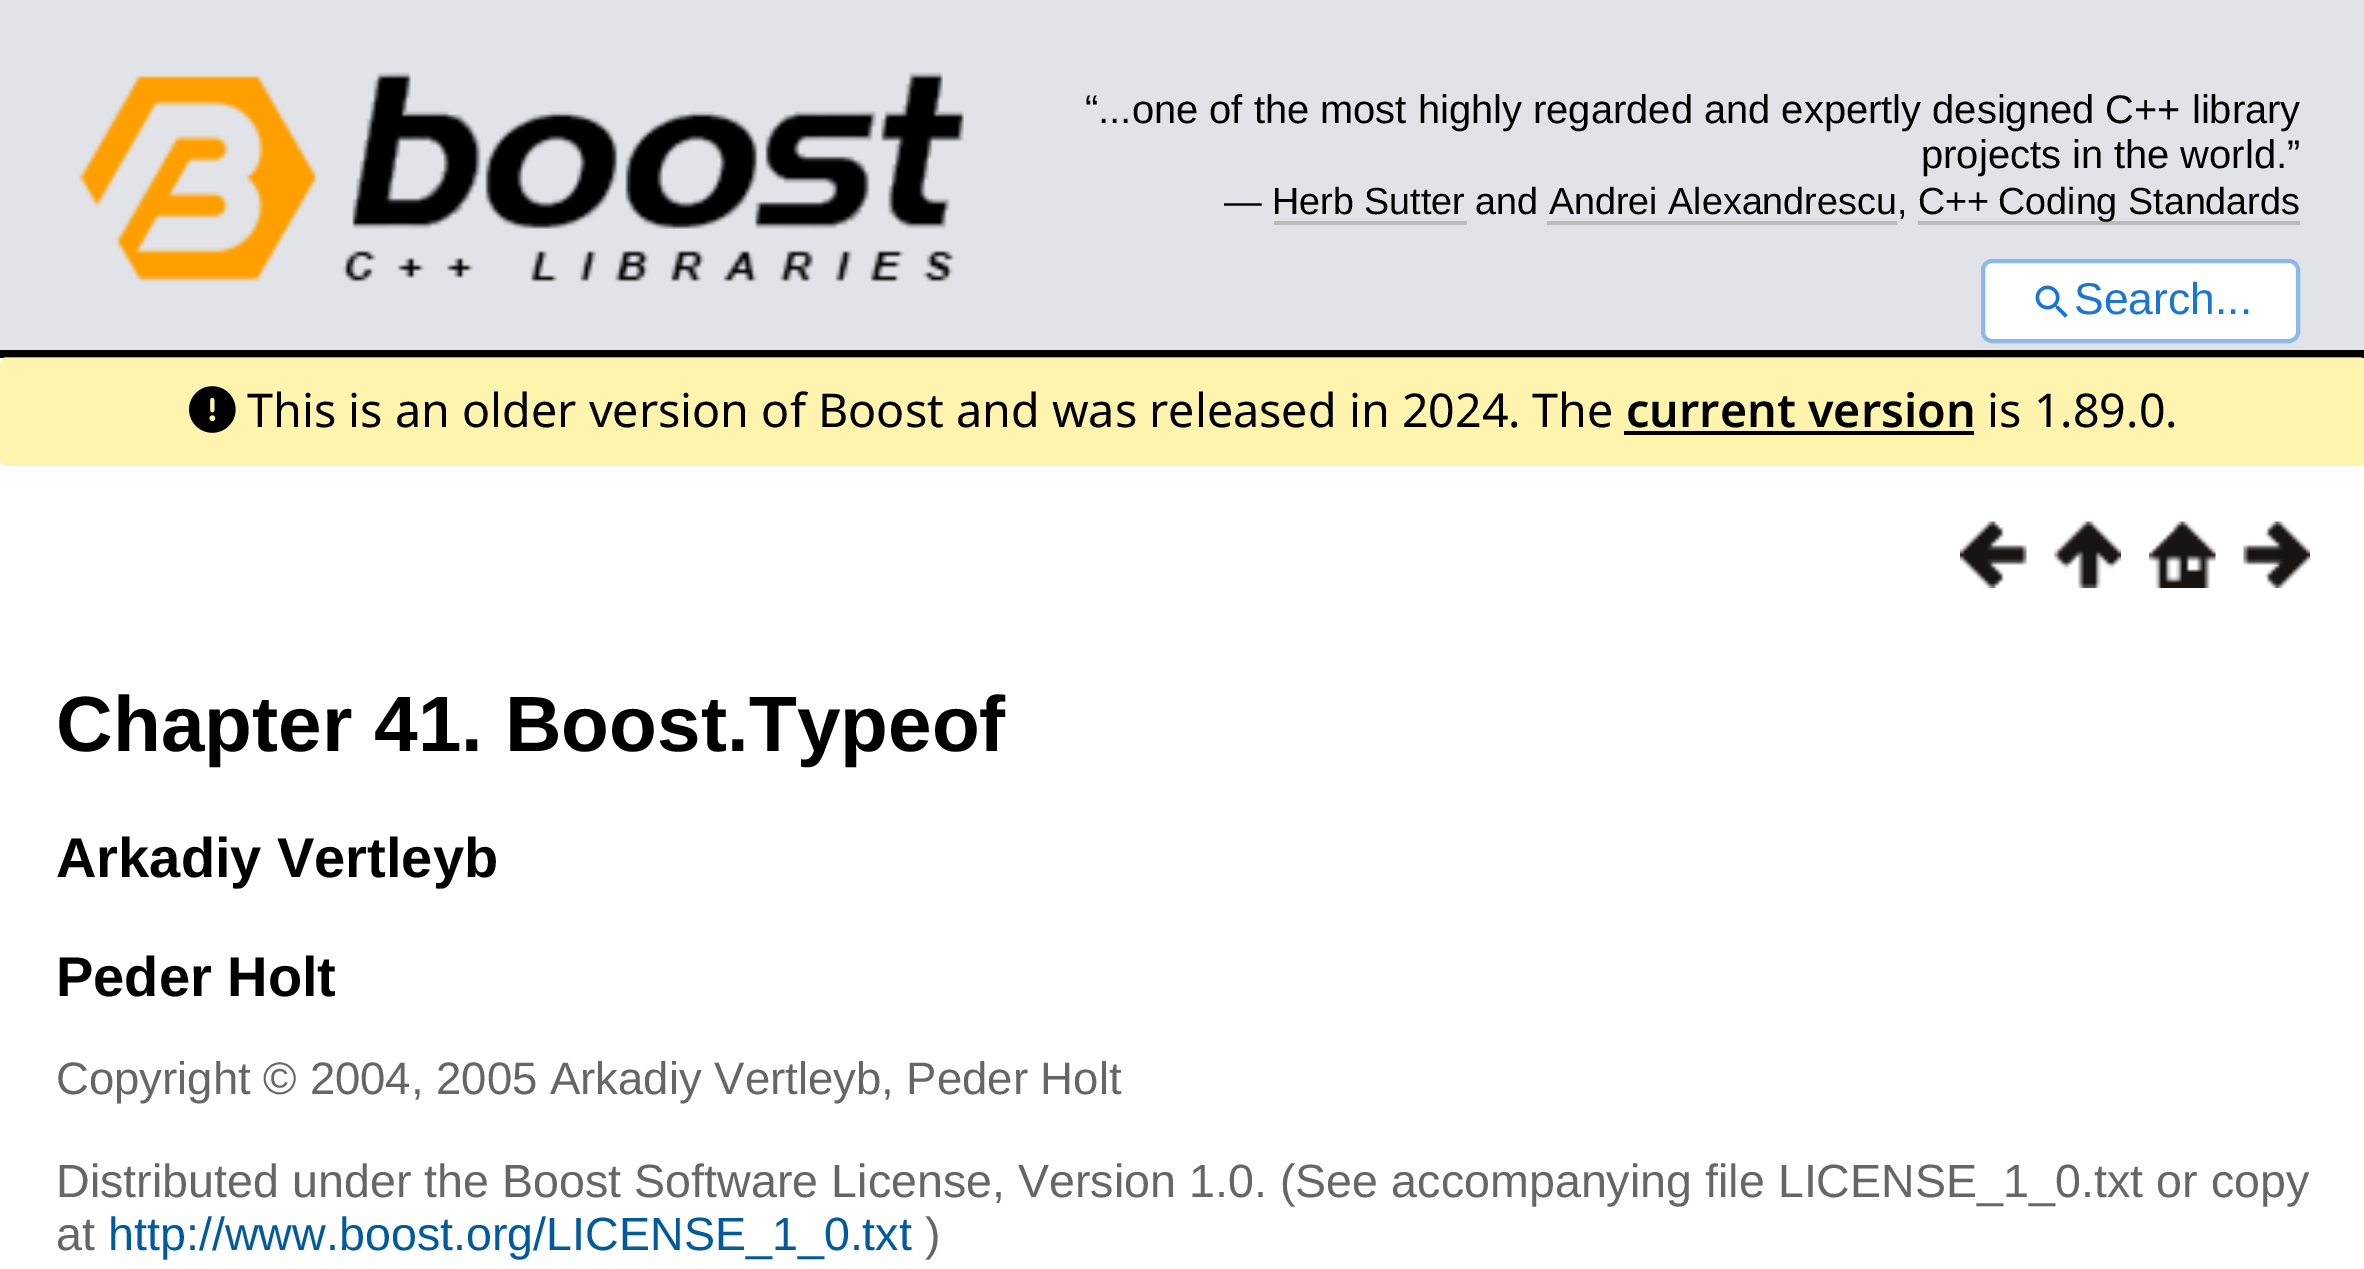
%!PS-Adobe-3.0
%%BoundingBox: 0 0 2364 1269
%%LanguageLevel: 3
%%Pages: 1
%%EndComments
%%BeginProlog
/f { fill } bind def
/S { stroke } bind def
/w { setlinewidth } bind def
/fn { [ exch dup neg 0 0 3 -1 roll 0 0 ] selectfont } def
/tx { moveto show } def
/bx { rectfill } def
/al { dup .setfillconstantalpha .setstrokeconstantalpha } def
/rr { 5 dict begin { /r /h /w /y /x } { exch def } forall
  x r add y moveto x w add y 2 copy h add r arct x w add y h add x 1 index r arct
  x y h add x y r arct x y 2 copy exch w add exch r arct closepath end } def
/im { 5 dict begin { /h /w /y /x /name } { exch def } forall
  gsave x y translate w h scale
  w h 8 [w 0 0 h 0 0] name (r) file false 3 colorimage grestore end } def
%%EndProlog
%%BeginSetup
<< /PageSize [2364 1269] /PageUsesTransparency true >> setpagedevice
%%EndSetup
%%Page: 1 1
0 .pushpdf14devicefilter
0 1269 translate 1 -1 scale
4 setmiterlimit
1 setgray
0 0 2364 1269 bx
0.882 0.89 0.91 setrgbcolor
0 0 2364 350 bx
0 setgray
0 350 2364 8 bx
(image0.raw) 79 72 885 210 im
/LiberationSans-Regular 39.9 fn
(“...one of the most highly) 1085 123 tx
(regarded and expertly designed C++ library) 1533 123 tx
(projects in the world.”) 1921 168 tx
/LiberationSans-Regular 37.7 fn
(— Herb Sutter and Andrei Alexandrescu, C++) 1224 214 tx
0.733 setgray
1918 221 382 4 bx
0 setgray
(Coding Standards) 1998 214 tx
0.733 setgray
1274 221 193 4 bx
1547 221 350 4 bx
1 setgray
1981 259 319 84 11 rr f
0.5 al
0.098 0.463 0.824 setrgbcolor
4 w
1983 261 315 80 9 rr S
1 al
(image1.raw) 2035 285 33 33 im
/LiberationSans-Regular 44.5 fn
(Search...) 2074 314 tx
0.7 al
0.996 0.941 0.545 setrgbcolor
0 357 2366 109 7 rr f
1 al
(image2.raw) 189 386 47 47 im
/NotoSans-Regular 46.65 fn
0 setgray
(This is an older version of Boost and was released in 2024.) 247 427 tx
(The) 1532 427 tx
/NotoSans-SemiBold 46.65 fn
(current version) 1626 427 tx
1624 431 350 4 bx
/NotoSans-Regular 46.65 fn
(is 1.89.0.) 1987 427 tx
(image3.raw) 1960 521 67 67 im
(image4.raw) 2054 521 67 67 im
(image5.raw) 2149 521 67 67 im
(image6.raw) 2243 521 67 67 im
/LiberationSans-Bold 78.4 fn
(Chapter 41. Boost.Typeof) 56 751 tx
/LiberationSans-Bold 56 fn
(Arkadiy Vertleyb) 56 877 tx
(Peder Holt) 56 996 tx
/LiberationSans-Regular 45.5 fn
0.4 setgray
(Copyright © 2004, 2005 Arkadiy Vertleyb, Peder Holt) 56 1094 tx
/LiberationSans-Regular 46.65 fn
(Distributed under the Boost Software License, Version 1.0. \(See accompanying) 56 1197 tx
(file LICENSE_1_0.txt or copy) 1705 1197 tx
(at) 56 1250 tx
0 0.353 0.612 setrgbcolor
(http://www.boost.org/LICENSE_1_0.txt) 108 1250 tx
0.4 setgray
(\)) 925 1250 tx
.poppdf14devicefilter showpage
%%EOF
